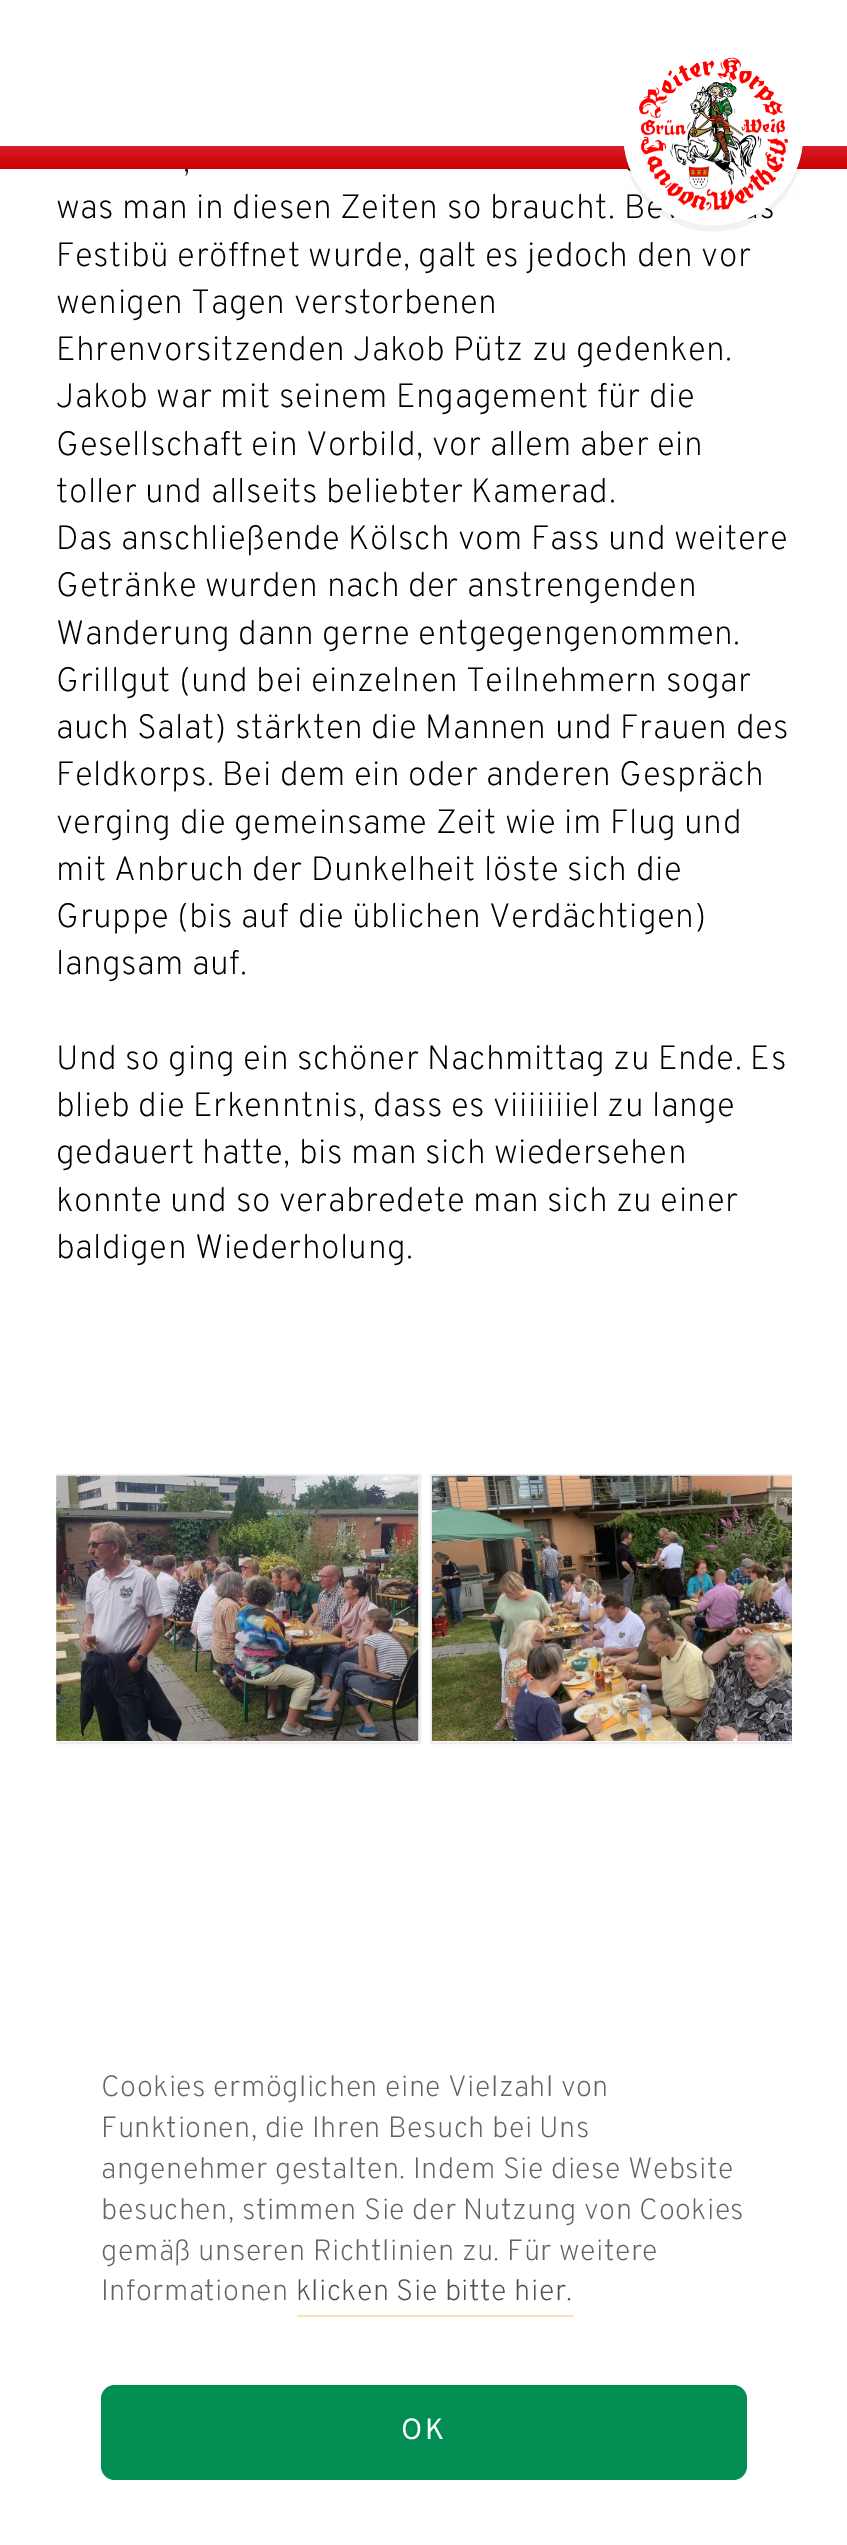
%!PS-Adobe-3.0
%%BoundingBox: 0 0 847 2545
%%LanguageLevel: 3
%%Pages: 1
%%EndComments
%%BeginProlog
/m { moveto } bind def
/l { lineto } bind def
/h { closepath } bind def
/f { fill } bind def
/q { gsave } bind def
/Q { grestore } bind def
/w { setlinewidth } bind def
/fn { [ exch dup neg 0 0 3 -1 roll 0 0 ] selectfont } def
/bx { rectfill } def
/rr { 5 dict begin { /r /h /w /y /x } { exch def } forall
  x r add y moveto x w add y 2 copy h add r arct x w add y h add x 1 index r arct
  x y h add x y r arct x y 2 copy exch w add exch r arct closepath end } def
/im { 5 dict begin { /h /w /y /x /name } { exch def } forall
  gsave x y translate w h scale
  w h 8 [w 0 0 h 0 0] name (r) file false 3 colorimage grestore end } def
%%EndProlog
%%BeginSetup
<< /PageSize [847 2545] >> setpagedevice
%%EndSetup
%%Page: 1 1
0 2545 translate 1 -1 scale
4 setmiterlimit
1 setgray
0 0 847 2545 bx
/Overpass-ExtraLight 33.75 fn
0 setgray
183 171 m 0.45 0 (,) ashow
q 0 146 m 847 146 l 847 169 l 0 169 l h clip newpath
<< /ShadingType 2 /ColorSpace /DeviceRGB /Coords [424 146 424 169] /Extend [true true] /Function << /FunctionType 2 /Domain [0 1] /C0 [0.847 0.122 0.153] /C1 [0.8 0 0.004] /N 1 >> >> shfill Q
56 218 m 0.45 0 (was man in diesen Zeiten so braucht. B) ashow
(image0.raw) 623 57 180 175 im
56 266 m 0.45 0 (Festibü eröffnet wurde, galt es jedoch den vor) ashow
56 313 m 0.45 0 (wenigen Tagen verstorbenen) ashow
56 360 m 0.45 0 (Ehrenvorsitzenden Jakob Pütz zu gedenken.) ashow
56 407 m 0.45 0 (Jakob war mit seinem Engagement für die) ashow
56 455 m 0.45 0 (Gesellschaft ein Vorbild, vor allem aber ein) ashow
56 502 m 0.45 0 (toller und allseits beliebter Kamerad.) ashow
56 549 m 0.45 0 (Das anschließende Kölsch vom Fass und weitere) ashow
56 596 m 0.45 0 (Getränke wurden nach der anstrengenden) ashow
56 644 m 0.45 0 (Wanderung dann gerne entgegengenommen.) ashow
56 691 m 0.45 0 (Grillgut \(und bei einzelnen Teilnehmern sogar) ashow
56 738 m 0.45 0 (auch Salat\) stärkten die Mannen und Frauen des) ashow
56 785 m 0.45 0 (Feldkorps. Bei dem ein oder anderen Gespräch) ashow
56 833 m 0.45 0 (verging die gemeinsame Zeit wie im Flug und) ashow
56 880 m 0.45 0 (mit Anbruch der Dunkelheit löste sich die) ashow
56 927 m 0.45 0 (Gruppe \(bis auf die üblichen Verdächtigen\)) ashow
56 974 m 0.45 0 (langsam auf.) ashow
56 1069 m 0.45 0 (Und so ging ein schöner Nachmittag zu Ende. Es) ashow
56 1116 m 0.45 0 (blieb die Erkenntnis, dass es viiiiiiiel zu lange) ashow
56 1163 m 0.45 0 (gedauert hatte, bis man sich wiedersehen) ashow
56 1211 m 0.45 0 (konnte und so verabredete man sich zu einer) ashow
56 1258 m 0.45 0 (baldigen Wiederholung.) ashow
0.976 setgray
56 1476 363 266 bx
q
56 1469 736 279 rectclip
0.929 setgray
2 w
39 1475 381 268 rectstroke
Q
(image1.raw) 56 1475 363 266 im
432 1741 360 1 bx
q
56 1469 736 279 rectclip
0.929 setgray
2 w
431 1475 378 268 rectstroke
Q
(image2.raw) 432 1475 360 266 im
/Overpass-ExtraLight 29.25 fn
0.392 setgray
101 2096 m 0.45 0 (Cookies ermöglichen eine Vielzahl von) ashow
101 2137 m 0.45 0 (Funktionen, die Ihren Besuch bei Uns) ashow
101 2178 m 0.45 0 (angenehmer gestalten. Indem Sie diese Website) ashow
101 2219 m 0.45 0 (besuchen, stimmen Sie der Nutzung von Cookies) ashow
101 2260 m 0.45 0 (gemäß unseren Richtlinien zu. Für weitere) ashow
101 2300 m 0.45 0 (Informationen) ashow
0.31 setgray
296 2300 m 0.45 0 (klicken Sie bitte hier.) ashow
0.996 0.886 0.714 setrgbcolor
297 2315 277 2 bx
0 0.557 0.325 setrgbcolor
101 2385 646 95 14 rr f
/Overpass-Regular 29.25 fn
1 setgray
401 2439 m 3 0 (OK) ashow
showpage
%%EOF
